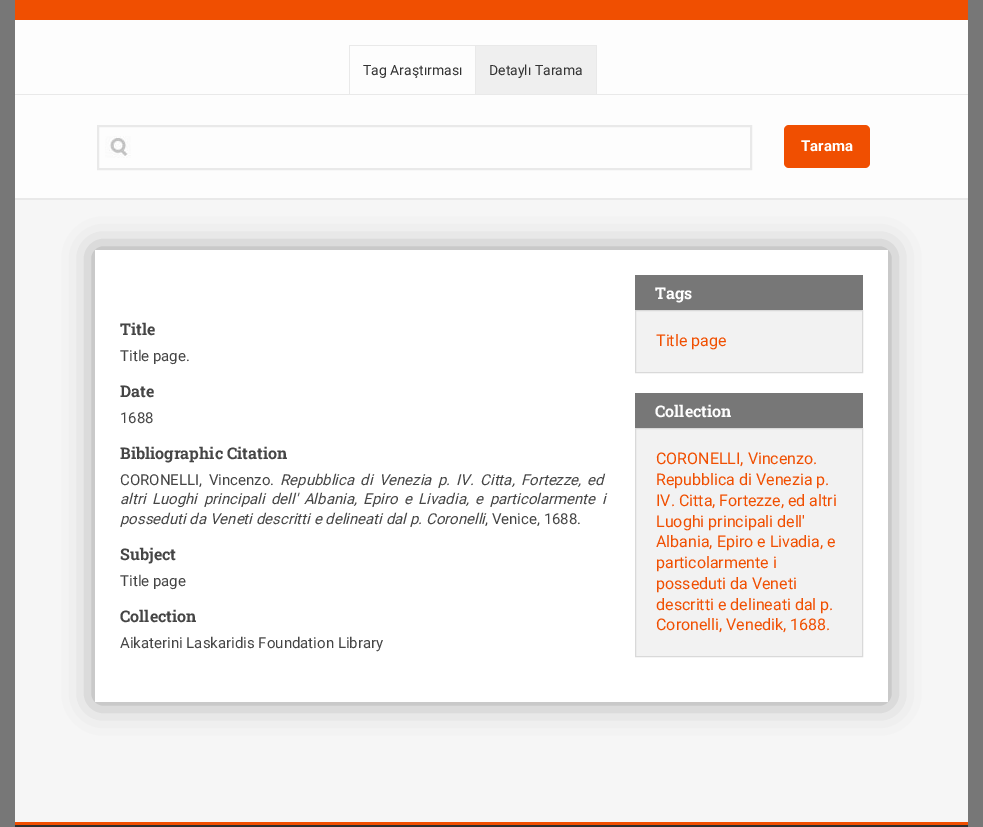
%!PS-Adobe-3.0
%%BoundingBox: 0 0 983 827
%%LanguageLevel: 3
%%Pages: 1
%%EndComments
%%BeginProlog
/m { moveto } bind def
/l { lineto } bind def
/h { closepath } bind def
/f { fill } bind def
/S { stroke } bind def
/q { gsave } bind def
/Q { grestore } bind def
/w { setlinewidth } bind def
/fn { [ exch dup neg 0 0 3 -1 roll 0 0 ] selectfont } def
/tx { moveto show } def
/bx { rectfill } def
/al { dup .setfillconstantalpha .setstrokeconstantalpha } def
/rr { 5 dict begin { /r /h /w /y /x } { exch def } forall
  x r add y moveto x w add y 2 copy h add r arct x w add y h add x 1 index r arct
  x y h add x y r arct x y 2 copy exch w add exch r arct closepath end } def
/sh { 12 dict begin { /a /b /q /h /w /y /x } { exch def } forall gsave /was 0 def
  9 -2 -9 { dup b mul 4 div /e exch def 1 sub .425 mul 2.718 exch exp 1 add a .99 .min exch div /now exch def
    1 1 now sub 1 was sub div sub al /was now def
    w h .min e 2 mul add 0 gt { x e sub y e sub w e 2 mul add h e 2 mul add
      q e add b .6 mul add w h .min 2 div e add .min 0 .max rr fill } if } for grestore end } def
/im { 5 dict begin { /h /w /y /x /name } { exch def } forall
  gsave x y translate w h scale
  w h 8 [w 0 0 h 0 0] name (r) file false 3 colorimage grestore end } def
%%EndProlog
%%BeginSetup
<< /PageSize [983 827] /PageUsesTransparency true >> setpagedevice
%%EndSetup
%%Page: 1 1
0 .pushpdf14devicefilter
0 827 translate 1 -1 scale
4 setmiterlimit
0.467 setgray
0 0 983 827 bx
0.941 0.31 0.004 setrgbcolor
15 0 953 20 bx
0.992 setgray
15 20 953 178 bx
0.914 setgray
15 198 953 2 bx
0.937 setgray
476 46 120 48 bx
0.914 setgray
349 45 248 1 bx
596 45 1 49 bx
475 45 1 49 bx
/Roboto-Regular 14 fn
0.2 setgray
(Detaylı Tarama) 489 75 tx
0.914 setgray
349 45 1 49 bx
0.2 setgray
(Tag Araştırması) 363 75 tx
0.914 setgray
15 94 953 1 bx
(image0.raw) 105 136 26 22 im
2 w
98 126 653 43 rectstroke
0.941 0.31 0.004 setrgbcolor
784 125 86 43 5 rr f
/Roboto-Bold 15 fn
1 setgray
(Tarama) 801 151 tx
0.965 setgray
15 200 953 622 bx
0.196 setgray
95 250 793 452 0 15 0.45 sh
1 setgray
95 250 793 452 bx
/RobotoSlab-Bold 16 fn
0.271 setgray
(Title) 120 335 tx
/Roboto-Regular 15 fn
(Title page.) 120 361 tx
/RobotoSlab-Bold 16 fn
(Date) 120 397 tx
/Roboto-Regular 15 fn
(1688) 120 423 tx
/RobotoSlab-Bold 16 fn
(Bibliographic Citation) 120 459 tx
/Roboto-Regular 15 fn
120 485 m 2.75 0 32 (CORONELLI, Vincenzo.) widthshow
/Roboto-Italic 15 fn
280 485 m 2.5 0 32 (Repubblica di Venezia p. IV. Citta, Fortezze, ed) widthshow
120 504 m 2.75 0 32 (altri Luoghi principali dell' Albania, Epiro e Livadia, e particolarmente i) widthshow
(posseduti da Veneti descritti e delineati dal p. Coronelli) 120 524 tx
/Roboto-Regular 15 fn
(, Venice, 1688.) 485 524 tx
/RobotoSlab-Bold 16 fn
(Subject) 120 560 tx
/Roboto-Regular 15 fn
(Title page) 120 586 tx
/RobotoSlab-Bold 16 fn
(Collection) 120 622 tx
/Roboto-Regular 15 fn
(Aikaterini Laskaridis Foundation Library) 120 648 tx
0.467 setgray
635 275 228 35 bx
/RobotoSlab-Bold 16 fn
1 setgray
(Tags) 655 299 tx
0.949 setgray
635.5 310.5 m 862.5 310.5 l 862.5 372.5 l 635.5 372.5 l h q f Q
0.851 setgray
1 w
S
/Roboto-Regular 16 fn
0.941 0.31 0.004 setrgbcolor
(Title page) 656 346 tx
0.467 setgray
635 393 228 35 bx
/RobotoSlab-Bold 16 fn
1 setgray
(Collection) 655 417 tx
0.949 setgray
635.5 428.5 m 862.5 428.5 l 862.5 656.5 l 635.5 656.5 l h q f Q
0.851 setgray
S
/Roboto-Regular 16 fn
0.941 0.31 0.004 setrgbcolor
(CORONELLI, Vincenzo.) 656 464 tx
(Repubblica di Venezia p.) 656 485 tx
(IV. Citta, Fortezze, ed altri) 656 506 tx
(Luoghi principali dell') 656 527 tx
(Albania, Epiro e Livadia, e) 656 547 tx
(particolarmente i) 656 568 tx
(posseduti da Veneti) 656 589 tx
(descritti e delineati dal p.) 656 610 tx
(Coronelli, Venedik, 1688.) 656 630 tx
0.184 setgray
15 825 953 2 bx
0.941 0.31 0.004 setrgbcolor
15 822 953 3 bx
.poppdf14devicefilter showpage
%%EOF
